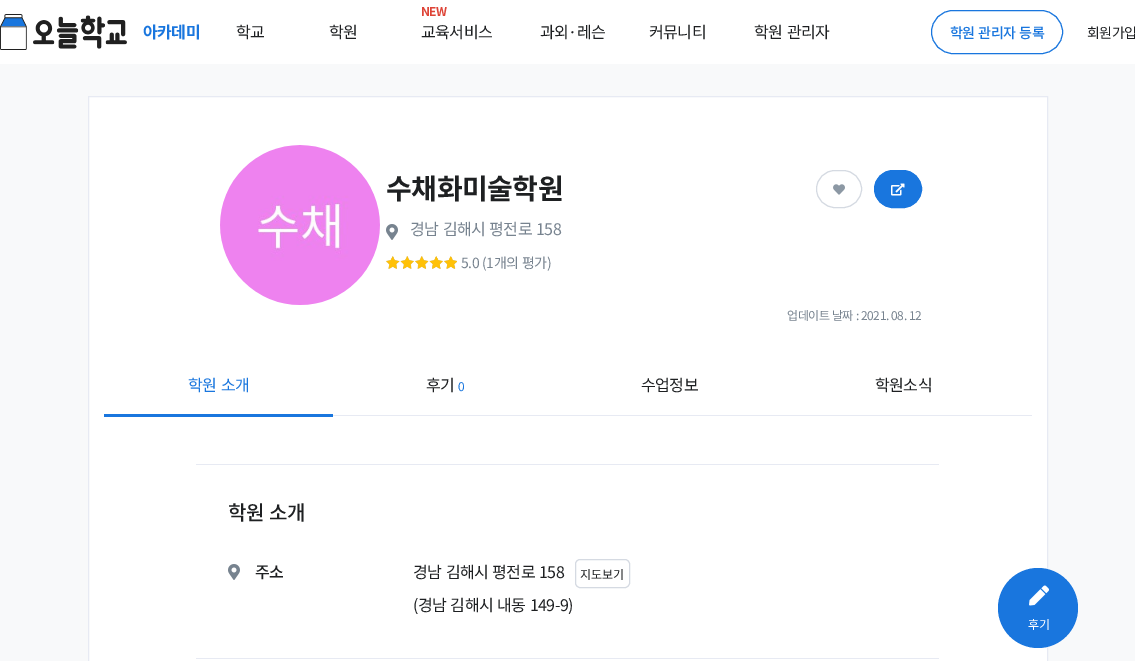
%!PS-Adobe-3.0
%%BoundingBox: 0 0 1135 661
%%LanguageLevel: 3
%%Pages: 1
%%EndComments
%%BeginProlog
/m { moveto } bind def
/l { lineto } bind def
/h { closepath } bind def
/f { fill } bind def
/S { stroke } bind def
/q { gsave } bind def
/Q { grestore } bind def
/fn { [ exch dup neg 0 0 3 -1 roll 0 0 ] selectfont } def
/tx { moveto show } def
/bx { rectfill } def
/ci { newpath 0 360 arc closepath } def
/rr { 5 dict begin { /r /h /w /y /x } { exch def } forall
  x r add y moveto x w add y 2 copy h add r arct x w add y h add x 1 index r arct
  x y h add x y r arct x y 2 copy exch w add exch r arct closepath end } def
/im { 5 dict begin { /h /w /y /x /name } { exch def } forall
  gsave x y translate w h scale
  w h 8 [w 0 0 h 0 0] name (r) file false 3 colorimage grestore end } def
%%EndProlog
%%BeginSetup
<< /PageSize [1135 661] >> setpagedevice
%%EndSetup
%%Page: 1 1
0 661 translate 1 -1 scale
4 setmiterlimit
0.973 0.976 0.98 setrgbcolor
0 0 1135 661 bx
1 setgray
0 0 1135 64 bx
(image0.raw) 0 14 127 36 im
/NotoSansKR-Bold 16 fn
0.098 0.463 0.871 setrgbcolor
143 38 m -0.5 0 (아카데미) ashow
/NotoSansKR-Regular 16 fn
0.118 0.125 0.133 setrgbcolor
236 38 m -0.5 0 (학교) ashow
329 38 m -0.5 0 (학원) ashow
/NotoSansKR-Bold 12 fn
0.871 0.267 0.216 setrgbcolor
421 16 m -0.5 0 (NEW) ashow
/NotoSansKR-Regular 16 fn
0.118 0.125 0.133 setrgbcolor
421 38 m -0.5 0 (교육서비스) ashow
540 38 m -0.5 0 (과외·레슨) ashow
649 38 m -0.5 0 (커뮤니티) ashow
754 38 m 1 0 32 -0.5 0 (학원 관리자) awidthshow
0.098 0.463 0.871 setrgbcolor
931.5 10.5 131 43 21.5 rr S
/NotoSansKR-Medium 14 fn
950 38 m 1 0 32 -0.5 0 (학원 관리자 등록) awidthshow
/NotoSansKR-Regular 14 fn
0.118 0.125 0.133 setrgbcolor
1087 38 m -0.5 0 (회원가입) ashow
1 setgray
88.5 96.5 m 1047.5 96.5 l 1047.5 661.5 l 88.5 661.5 l h q f Q
0.906 0.918 0.953 setrgbcolor
S
(image1.raw) 220 145 160 160 im
/NotoSansKR-Bold 28 fn
0.118 0.125 0.133 setrgbcolor
386 199 m -0.5 0 (수채화미술학원) ashow
0.835 0.855 0.886 setrgbcolor
816.5 170.5 45 37 18.5 rr S
(image2.raw) 833 184 12 11 im
0.098 0.463 0.871 setrgbcolor
874.5 170.5 47 37 18.5 rr q f Q
S
(image3.raw) 891 183 14 13 im
(image4.raw) 386 224 12 16 im
/NotoSansKR-Regular 16 fn
0.467 0.514 0.561 setrgbcolor
410 235 m 1 0 32 -0.5 0 (경남 김해시 평전로 158) awidthshow
(image5.raw) 386 256 71 13 im
(image6.raw) 386 256 71 13 im
/NotoSansKR-Regular 14 fn
461 268 m -0.5 0 (5.0) ashow
482 268 m 1 0 32 -0.5 0 (\(1개의 평가\)) awidthshow
/NotoSansKR-Regular 12 fn
787 320 m 0.5 0 32 -0.5 0 (업데이트 날짜 : 2021. 08. 12) awidthshow
0.906 0.918 0.953 setrgbcolor
333 415 699 1 bx
0.098 0.463 0.871 setrgbcolor
104 414 229 3 bx
/NotoSansKR-Regular 16 fn
188 391 m 1 0 32 -0.5 0 (학원 소개) awidthshow
0.118 0.125 0.133 setrgbcolor
426 391 m -0.5 0 (후기) ashow
/NotoSansKR-Regular 12 fn
0.098 0.463 0.871 setrgbcolor
458 391 m -0.5 0 (0) ashow
/NotoSansKR-Regular 16 fn
0.118 0.125 0.133 setrgbcolor
641 391 m -0.5 0 (수업정보) ashow
875 391 m -0.5 0 (학원소식) ashow
0.906 0.918 0.953 setrgbcolor
196 464 743 1 bx
/NotoSansKR-Medium 20 fn
0.118 0.125 0.133 setrgbcolor
228 520 m 1 0 32 -0.5 0 (학원 소개) awidthshow
(image4.raw) 228 564 12 16 im
/NotoSansKR-Medium 16 fn
255 578 m -0.5 0 (주소) ashow
/NotoSansKR-Regular 16 fn
413 578 m 1 0 32 -0.5 0 (경남 김해시 평전로 158) awidthshow
0.835 0.855 0.886 setrgbcolor
575.5 559.5 54 28 4.5 rr S
/NotoSansKR-Regular 12 fn
0.118 0.125 0.133 setrgbcolor
(지도보기) 580 579 tx
/NotoSansKR-Regular 16 fn
413 611 m 1 0 32 -0.5 0 (\(경남 김해시 내동 149-9\)) awidthshow
0.906 0.918 0.953 setrgbcolor
196 658 743 1 bx
0.098 0.463 0.871 setrgbcolor
1038 608 40 ci f
(image7.raw) 1029 585 20 21 im
/NotoSansKR-Regular 12 fn
1 setgray
1028 629 m -0.5 0 (후기) ashow
showpage
%%EOF
